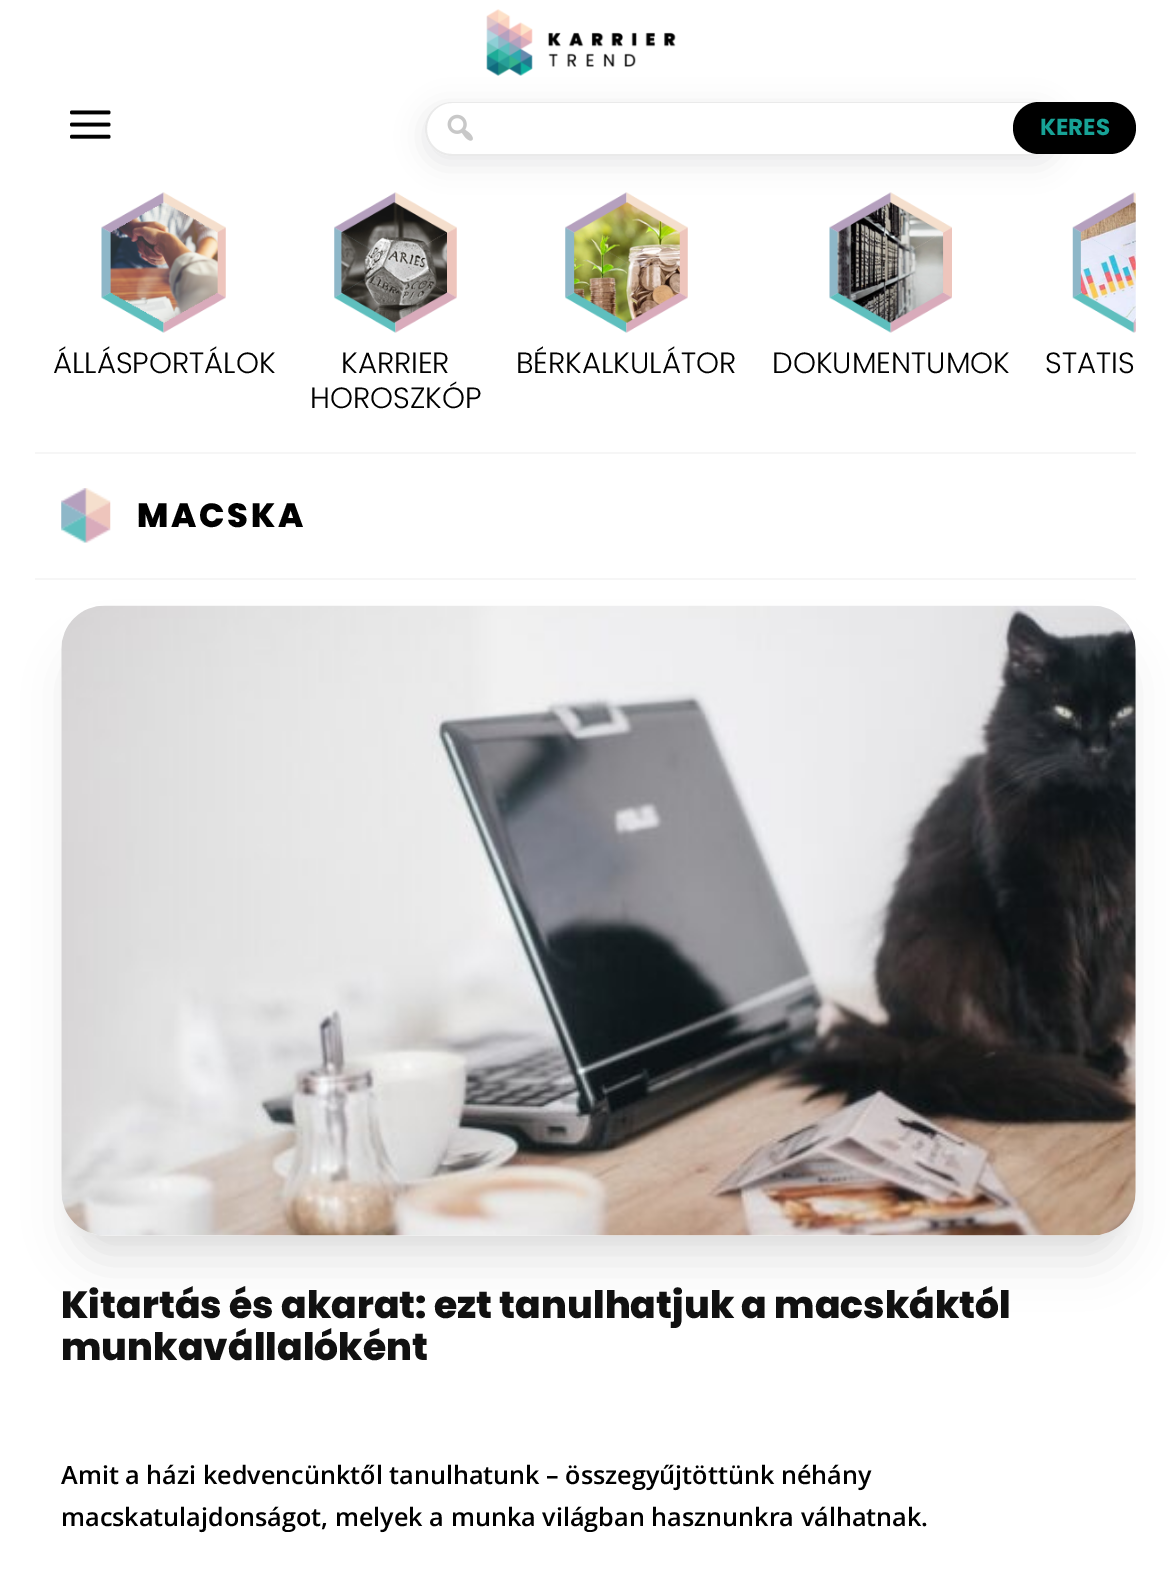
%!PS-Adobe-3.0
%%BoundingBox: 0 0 1170 1584
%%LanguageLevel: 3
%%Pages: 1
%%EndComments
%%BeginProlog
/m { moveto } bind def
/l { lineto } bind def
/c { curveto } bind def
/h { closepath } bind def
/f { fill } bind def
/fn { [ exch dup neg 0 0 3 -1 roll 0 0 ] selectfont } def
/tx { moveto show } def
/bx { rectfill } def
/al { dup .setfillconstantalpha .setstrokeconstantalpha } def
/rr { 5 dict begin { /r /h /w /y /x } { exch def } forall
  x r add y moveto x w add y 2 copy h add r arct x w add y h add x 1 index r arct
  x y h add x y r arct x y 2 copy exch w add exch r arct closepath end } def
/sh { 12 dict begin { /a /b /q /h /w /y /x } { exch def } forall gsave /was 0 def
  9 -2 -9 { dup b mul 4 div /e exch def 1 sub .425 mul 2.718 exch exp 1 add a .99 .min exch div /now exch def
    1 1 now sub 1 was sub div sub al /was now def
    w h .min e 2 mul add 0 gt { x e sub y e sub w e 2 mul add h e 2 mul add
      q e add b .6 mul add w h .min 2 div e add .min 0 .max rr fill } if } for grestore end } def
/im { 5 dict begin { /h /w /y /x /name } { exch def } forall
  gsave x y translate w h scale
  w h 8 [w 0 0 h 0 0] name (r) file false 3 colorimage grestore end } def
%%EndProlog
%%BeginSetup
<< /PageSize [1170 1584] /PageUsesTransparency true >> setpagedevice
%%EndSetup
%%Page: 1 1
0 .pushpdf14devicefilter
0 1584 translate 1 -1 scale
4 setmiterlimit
1 setgray
0 0 1170 1584 bx
(image0.raw) 486 9 190 67 im
(image1.raw) 70 110 41 29 im
(image4.raw) 334 192 123 141 im
(image5.raw) 565 192 123 141 im
(image6.raw) 829 192 123 141 im
(image7.raw) 1072 192 64 141 im
0.067 0.067 0.102 setrgbcolor
425 109 632 54 27 14 0.1 sh
1 setgray
425 102 632 54 27 rr f
0.918 setgray
452 102 m 1030 102 l 1045 102 1057 114 1057 129 c 1057 144 1045 156 1030 156 c 452 156 l 437 156 425 144 425 129 c 425 114 437 102 452 102 c h 452 103 m 1030 103 l 1045 103 1057 115 1057 129 c 1057 143 1045 154 1030 154 c 452 154 l 438 154 427 143 427 129 c 427 115 438 103 452 103 c h eofill
(image2.raw) 447 114 26 27 im
0 setgray
1013 102 123 52 26 rr f
/Poppins-Bold 23 fn
0.09 0.635 0.588 setrgbcolor
(KERES) 1040 135 tx
(image3.raw) 101 192 125 141 im
/Poppins-Light 29.25 fn
0 setgray
(ÁLLÁSPORTÁLOK) 53 373 tx
(KARRIER) 341 373 tx
(HOROSZKÓP) 310 408 tx
(BÉRKALKULÁTOR) 516 373 tx
(DOKUMENTUMOK) 772 373 tx
(STATIS) 1045 373 tx
0.965 setgray
35 452 1101 2 bx
35 578 1101 2 bx
(image8.raw) 61 488 50 55 im
/Poppins-ExtraBold 33.5 fn
0 setgray
137 527 m 2.75 0 (MACSKA) ashow
70 632 1057 612 35 9 0.04 sh
70 649 1057 613 35 22 0.1 sh
(image9.raw) 61 605 1075 631 im
/Poppins-ExtraBold 37.8 fn
0.067 setgray
(Kitartás és akarat: ezt tanulhatjuk a macskáktól) 61 1318 tx
(munkavállalóként) 61 1360 tx
/OpenSans-SemiBold 25.2 fn
0 setgray
(Amit a házi kedvencünktől tanulhatunk – összegyűjtöttünk néhány) 61 1484 tx
(macskatulajdonságot, melyek a munka világban hasznunkra válhatnak.) 61 1526 tx
.poppdf14devicefilter showpage
%%EOF
